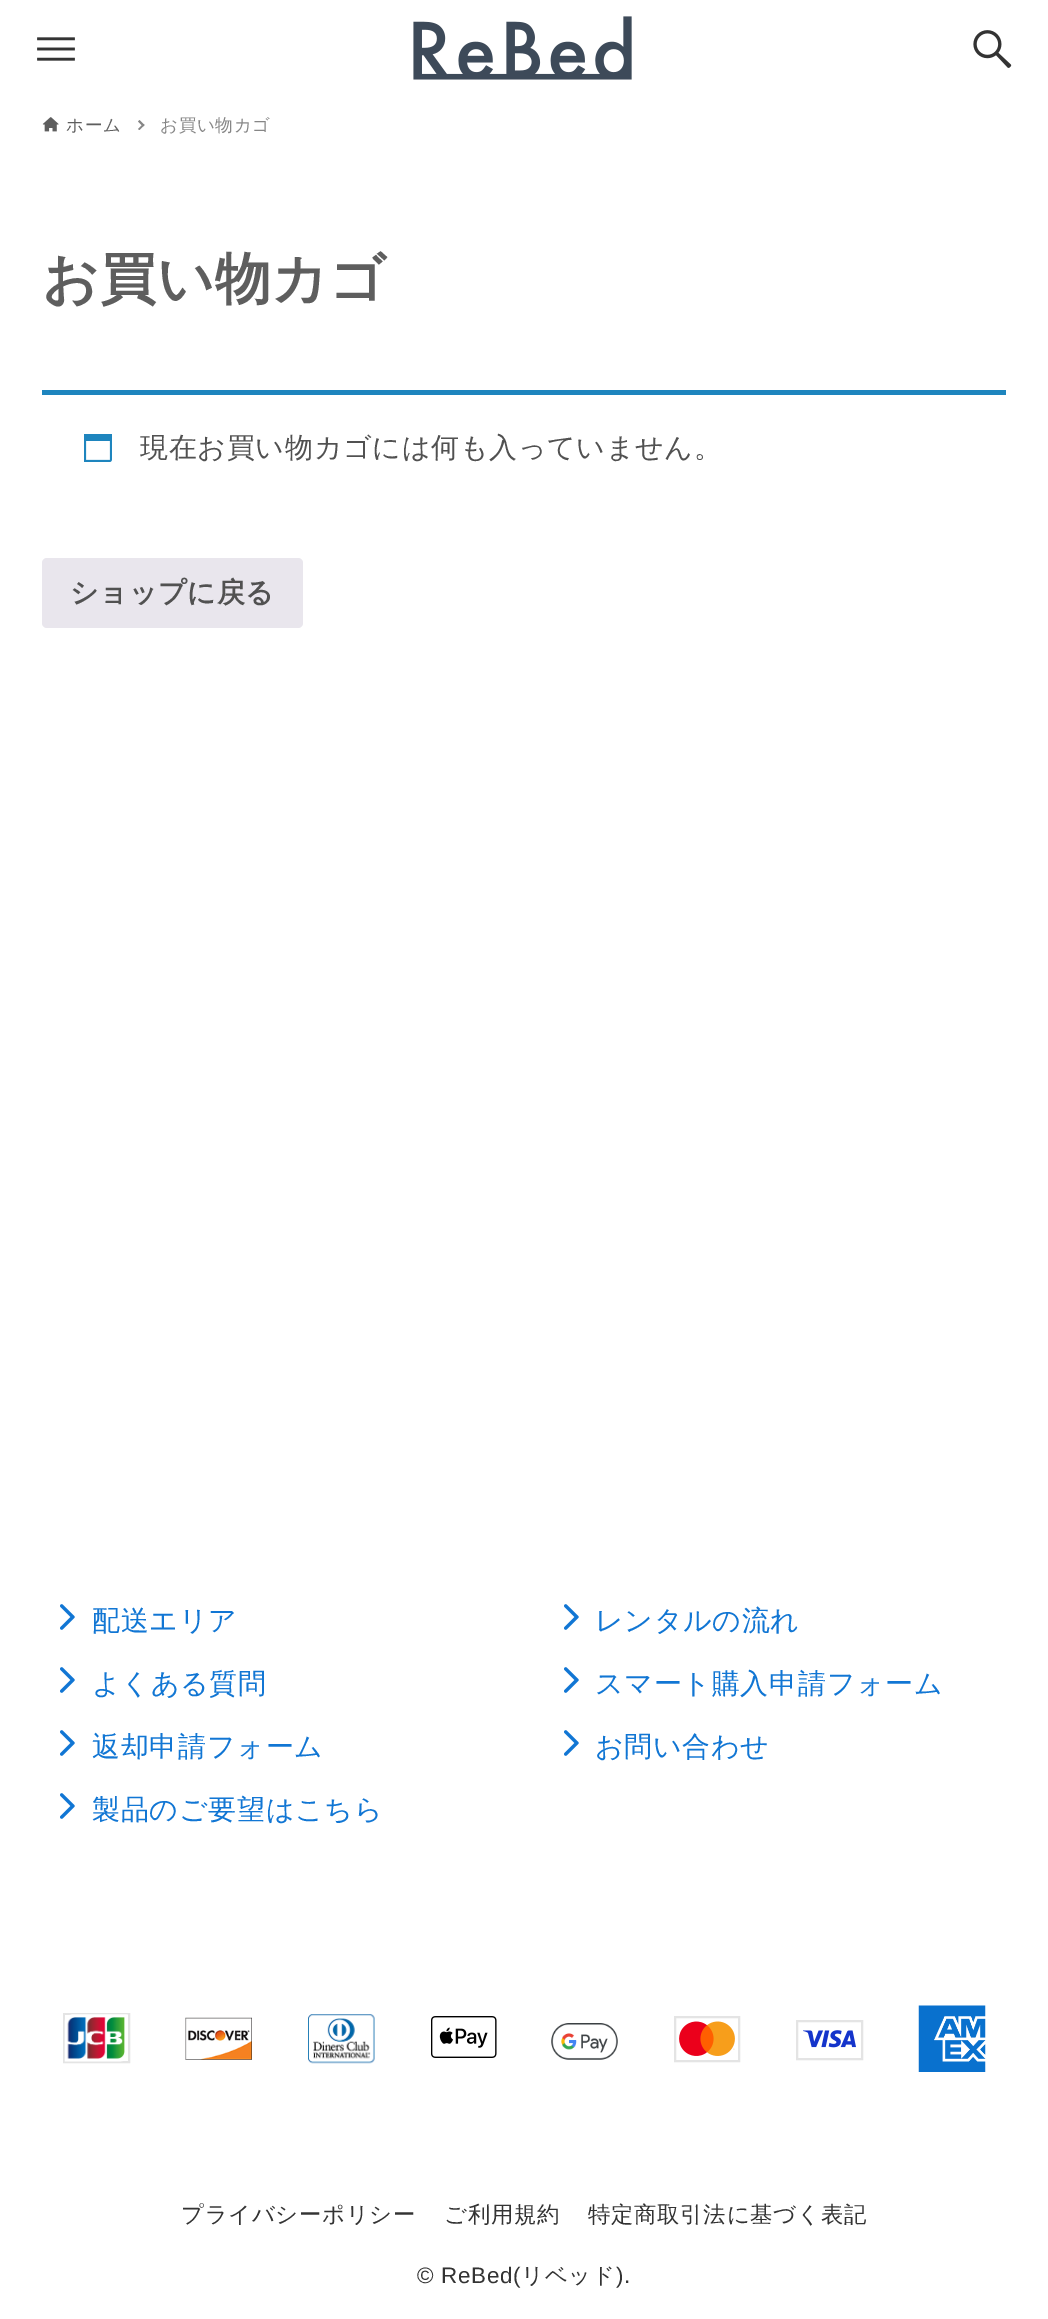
%!PS-Adobe-3.0
%%BoundingBox: 0 0 1048 2319
%%LanguageLevel: 3
%%Pages: 1
%%EndComments
%%BeginProlog
/m { moveto } bind def
/l { lineto } bind def
/h { closepath } bind def
/f { fill } bind def
/w { setlinewidth } bind def
/fn { [ exch dup neg 0 0 3 -1 roll 0 0 ] selectfont } def
/bx { rectfill } def
/rr { 5 dict begin { /r /h /w /y /x } { exch def } forall
  x r add y moveto x w add y 2 copy h add r arct x w add y h add x 1 index r arct
  x y h add x y r arct x y 2 copy exch w add exch r arct closepath end } def
/im { 5 dict begin { /h /w /y /x /name } { exch def } forall
  gsave x y translate w h scale
  w h 8 [w 0 0 h 0 0] name (r) file false 3 colorimage grestore end } def
%%EndProlog
%%BeginSetup
<< /PageSize [1048 2319] >> setpagedevice
%%EndSetup
%%Page: 1 1
0 2319 translate 1 -1 scale
4 setmiterlimit
1 setgray
0 0 1048 2319 bx
(image0.raw) 37 37 38 24 im
(image1.raw) 413 16 219 64 im
(image2.raw) 973 30 39 38 im
(image3.raw) 42 117 17 15 im
/WenQuanYiZenHei-Medium 17.5 fn
0.369 setgray
66 131 m 0.7 0 (ホーム) ashow
0.525 setgray
139.5 120 m 144.5 125 l 143 126.5 l 138 121.5 l h f
143 124 m 144.5 125 l 139.5 130 l 138 129 l h f
160 131 m 0.7 0 (お買い物カゴ) ashow
/WenQuanYiZenHei-Bold 56 fn
0.369 setgray
42 298 m 0.7 0 (お買い物カゴ) ashow
0.118 0.522 0.745 setrgbcolor
42 390 964 5 bx
(image4.raw) 84 434 28 28 im
/WenQuanYiZenHei-Medium 28 fn
0.318 setgray
140 457 m 0.7 0 (現在お買い物カゴには何も入っていません。) ashow
0.914 0.902 0.929 setrgbcolor
42 558 261 70 5 rr f
/WenQuanYiZenHei-Bold 28 fn
0.318 setgray
70 602 m 0.7 0 (ショップに戻る) ashow
(image5.raw) 60 1604 15 26 im
/WenQuanYiZenHei-Medium 28 fn
0.067 0.463 0.831 setrgbcolor
92 1630 m 0.7 0 (配送エリア) ashow
(image5.raw) 564 1604 15 26 im
595 1630 m 0.7 0 (レンタルの流れ) ashow
(image5.raw) 60 1667 15 26 im
92 1693 m 0.7 0 (よくある質問) ashow
(image5.raw) 564 1667 15 26 im
595 1693 m 0.7 0 (スマート購入申請フォーム) ashow
(image5.raw) 60 1730 15 26 im
92 1756 m 0.7 0 (返却申請フォーム) ashow
(image5.raw) 564 1730 15 26 im
595 1756 m 0.7 0 (お問い合わせ) ashow
(image5.raw) 60 1793 15 26 im
92 1819 m 0.7 0 (製品のご要望はこちら) ashow
0.894 setgray
2 w
64 2014 65 48 rectstroke
(image6.raw) 64 2014 64 48 im
(image7.raw) 185 2017 67 43 im
(image8.raw) 308 2014 67 50 im
(image9.raw) 431 2016 66 42 im
(image10.raw) 551 2023 67 37 im
675 2017 64 44 rectstroke
(image11.raw) 679 2021 56 35 im
797 2021 65 38 rectstroke
(image12.raw) 803 2030 53 18 im
(image13.raw) 918 2005 68 67 im
/WenQuanYiZenHei-Medium 22.4 fn
0.2 setgray
181 2222 m 0.7 0 (プライバシーポリシー) ashow
444 2222 m 0.7 0 (ご利用規約) ashow
588 2222 m 0.7 0 (特定商取引法に基づく表記) ashow
/LiberationSans-Regular 22.4 fn
417 2283 m 0.7 0 (© ReBed\() ashow
/WenQuanYiZenHei-Medium 22.4 fn
521 2283 m 0.7 0 (リベッド) ashow
/LiberationSans-Regular 22.4 fn
616 2283 m 0.7 0 (\).) ashow
showpage
%%EOF
